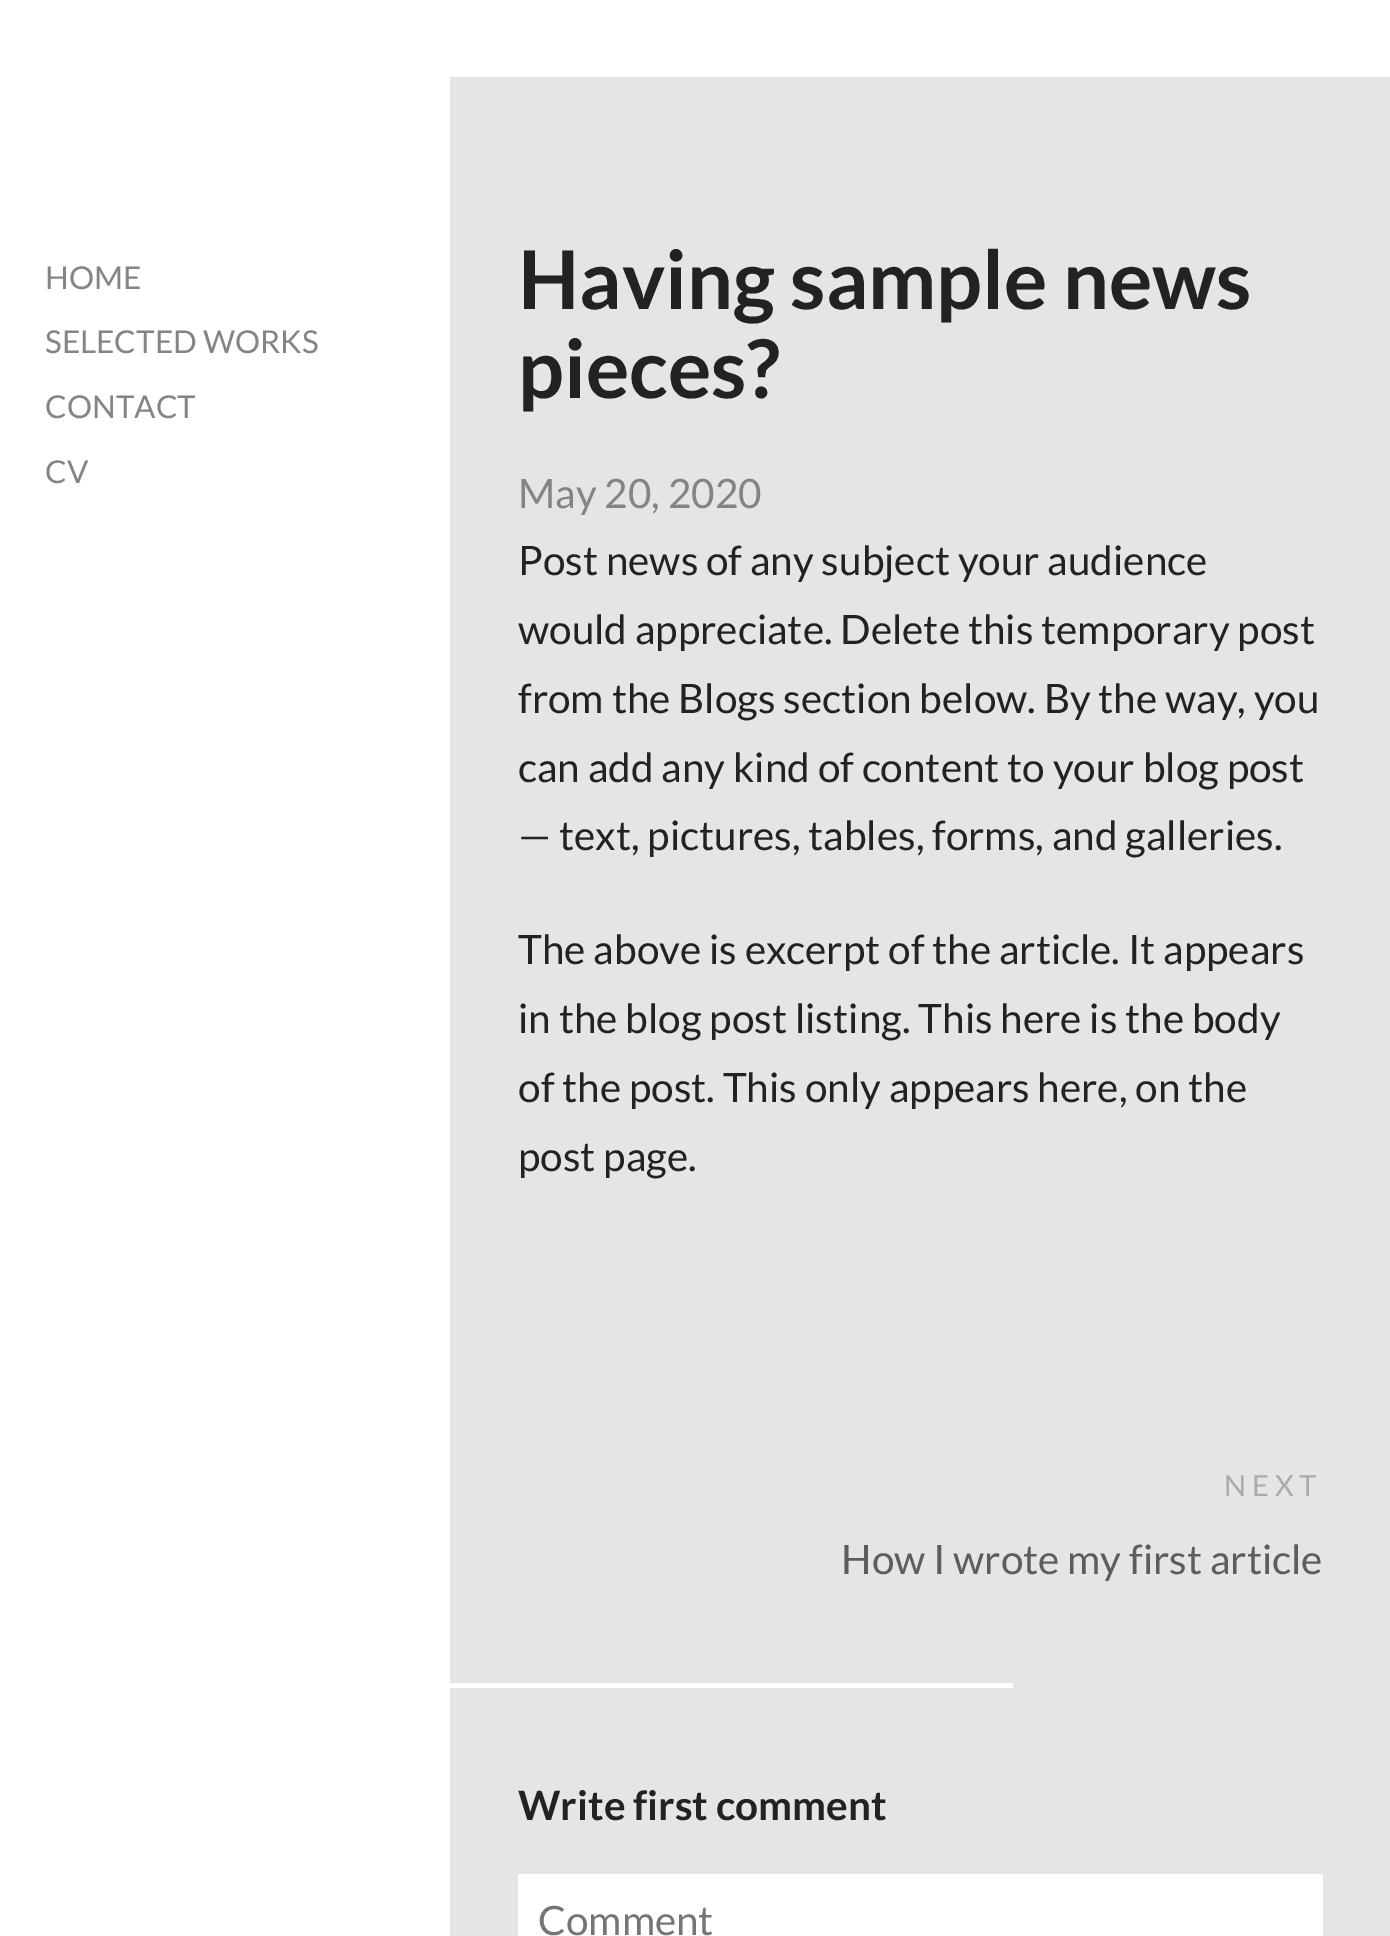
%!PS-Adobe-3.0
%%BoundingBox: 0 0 1390 1936
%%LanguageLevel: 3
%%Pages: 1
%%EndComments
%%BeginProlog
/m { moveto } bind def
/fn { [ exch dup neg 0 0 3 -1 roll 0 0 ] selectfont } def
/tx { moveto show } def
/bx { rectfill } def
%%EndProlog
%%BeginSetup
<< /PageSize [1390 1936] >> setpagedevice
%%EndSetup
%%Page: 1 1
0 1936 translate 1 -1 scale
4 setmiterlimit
1 setgray
0 0 1390 1936 bx
/Lato-Regular 31.5 fn
0.518 setgray
(HOME) 45 289 tx
(SELECTED WORKS) 45 353 tx
(CONTACT) 45 418 tx
(CV) 45 483 tx
0.898 setgray
450 77 940 1859 bx
/Lato-Bold 81 fn
0.133 setgray
(Having sample news) 518 309 tx
(pieces?) 518 398 tx
/Lato-Regular 40.5 fn
0.518 setgray
(May 20, 2020) 518 508 tx
0.133 setgray
(Post news of any subject your audience) 518 575 tx
(would appreciate. Delete this temporary post) 518 644 tx
(from the Blogs section below. By the way, you) 518 713 tx
(can add any kind of content to your blog post) 518 782 tx
(— text, pictures, tables, forms, and galleries.) 518 850 tx
(The above is excerpt of the article. It appears) 518 964 tx
(in the blog post listing. This here is the body) 518 1033 tx
(of the post. This only appears here, on the) 518 1102 tx
(post page.) 518 1171 tx
/Lato-Regular 29 fn
0.671 setgray
1224 1496 m 6 0 (NEXT) ashow
/Lato-Regular 40.5 fn
0.365 setgray
(How I wrote my first article) 841 1574 tx
1 setgray
450 1683 563 5 bx
/Lato-Bold 40.5 fn
0.133 setgray
(Write first comment) 518 1820 tx
1 setgray
518 1874 805 62 bx
/Lato-Regular 40.5 fn
0.459 setgray
(Comment) 538 1935 tx
showpage
%%EOF
